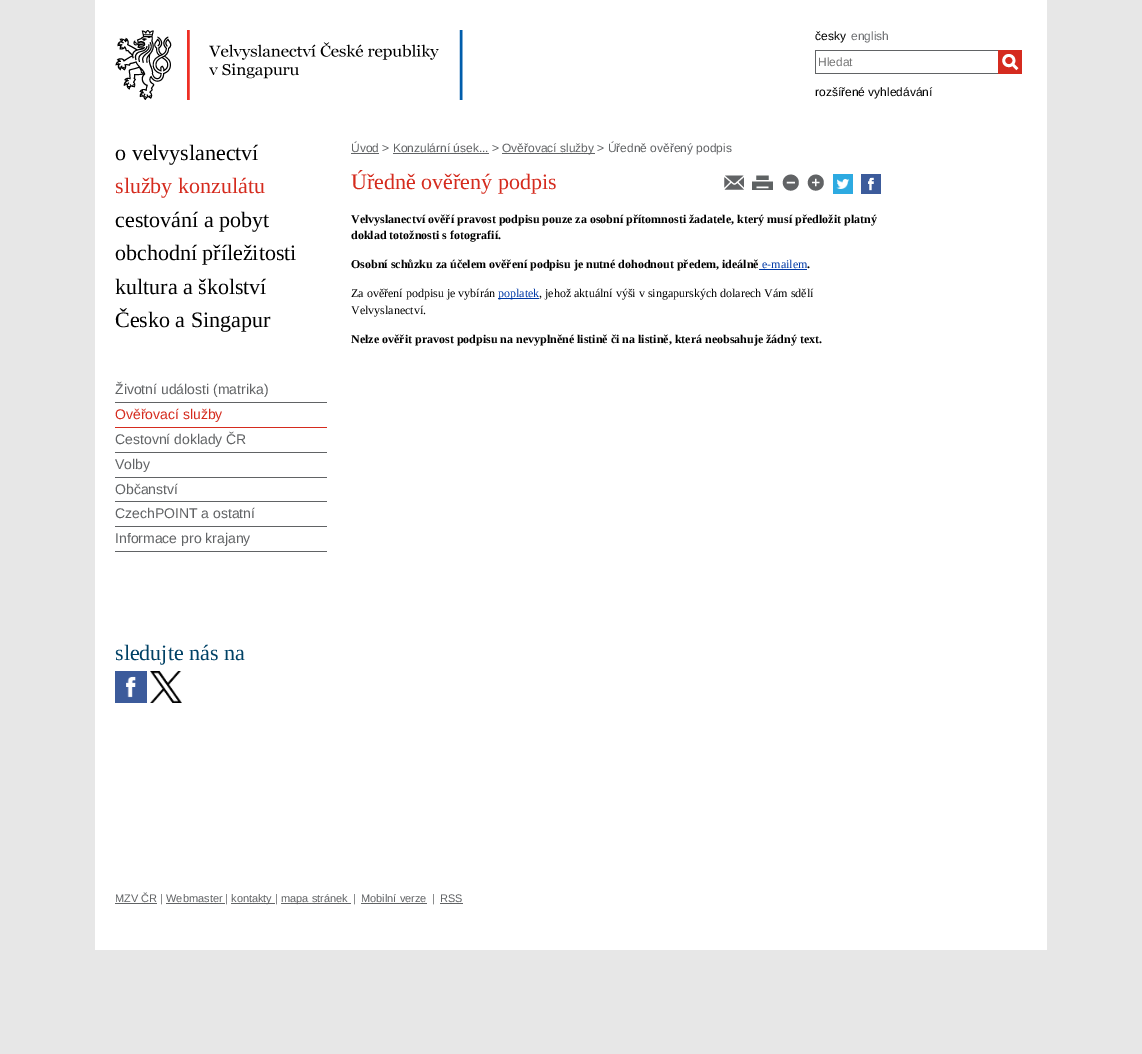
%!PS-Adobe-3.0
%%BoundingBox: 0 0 1142 1054
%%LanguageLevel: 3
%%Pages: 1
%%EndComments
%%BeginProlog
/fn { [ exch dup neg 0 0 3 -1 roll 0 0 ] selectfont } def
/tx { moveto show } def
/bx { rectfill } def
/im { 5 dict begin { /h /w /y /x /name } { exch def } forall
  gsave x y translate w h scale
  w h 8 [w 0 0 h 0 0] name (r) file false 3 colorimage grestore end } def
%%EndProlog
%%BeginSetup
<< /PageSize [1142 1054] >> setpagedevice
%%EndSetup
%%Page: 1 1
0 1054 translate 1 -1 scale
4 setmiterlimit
0.906 setgray
0 0 1142 1054 bx
1 setgray
95 0 952 950 bx
(image0.raw) 115 30 348 70 im
/LiberationSans-Regular 12 fn
0 setgray
(česky) 815 40 tx
0.427 0.435 0.447 setrgbcolor
(english) 851 40 tx
0.38 0.388 0.396 setrgbcolor
815 50 183 1 bx
815 73 183 1 bx
815 50 1 24 bx
0.459 setgray
(Hledat) 818 66 tx
(image1.raw) 998 50 24 24 im
0 setgray
(rozšířené vyhledávání) 815 96 tx
/LiberationSerif-Regular 22 fn
(o velvyslanectví) 115 160 tx
0.835 0.169 0.118 setrgbcolor
(služby konzulátu) 115 193 tx
0 setgray
(cestování a pobyt) 115 227 tx
(obchodní příležitosti) 115 260 tx
(kultura a školství) 115 294 tx
(Česko a Singapur) 115 327 tx
/LiberationSans-Regular 12 fn
0.38 0.388 0.396 setrgbcolor
(Úvod > Konzulární úsek... >) 351 152 tx
351 153 28 1 bx
502 153 93 1 bx
(Ověřovací služby > Úředně ověřený podpis) 502 152 tx
393 153 96 1 bx
/LiberationSerif-Regular 22 fn
0.835 0.169 0.118 setrgbcolor
(Úředně ověřený podpis) 351 189 tx
/LiberationSerif-Bold 12 fn
0 setgray
(Velvyslanectví ověří pravost podpisu pouze za osobní přítomnosti žadatele, který musí předložit platný) 351 223 tx
(doklad totožnosti s fotografií.) 351 239 tx
(Osobní schůzku za účelem ověření podpisu je nutné dohodnout předem, ideálně) 351 268 tx
/LiberationSerif-Regular 12 fn
0 0.224 0.651 setrgbcolor
(e-mailem) 762 268 tx
759 269 48 1 bx
/LiberationSerif-Bold 12 fn
0 setgray
(.) 807 268 tx
/LiberationSerif-Regular 12 fn
(Za ověření podpisu je vybírán) 351 297 tx
0 0.224 0.651 setrgbcolor
498 298 41 1 bx
(poplatek) 498 297 tx
0 setgray
(, jehož aktuální výši v singapurských dolarech Vám sdělí) 539 297 tx
(Velvyslanectví.) 351 314 tx
/LiberationSerif-Bold 12 fn
(Nelze ověřit pravost podpisu na nevyplněné listině či na listině, která neobsahuje žádný text.) 351 343 tx
(image2.raw) 724 175 20 15 im
(image3.raw) 752 175 21 15 im
(image4.raw) 782 174 17 17 im
(image5.raw) 807 174 17 17 im
(image6.raw) 833 174 20 20 im
(image7.raw) 861 174 20 20 im
0.38 0.388 0.396 setrgbcolor
115 402 212 1 bx
/LiberationSans-Regular 14 fn
(Životní události \(matrika\)) 115 394 tx
0.835 0.169 0.118 setrgbcolor
115 427 212 1 bx
(Ověřovací služby) 115 419 tx
0.38 0.388 0.396 setrgbcolor
115 452 212 1 bx
(Cestovní doklady ČR) 115 444 tx
115 477 212 1 bx
(Volby) 115 469 tx
115 501 212 1 bx
(Občanství) 115 494 tx
115 526 212 1 bx
(CzechPOINT a ostatní) 115 518 tx
115 551 212 1 bx
(Informace pro krajany) 115 543 tx
/LiberationSerif-Regular 22 fn
0 0.255 0.396 setrgbcolor
(sledujte nás na) 115 660 tx
(image8.raw) 115 671 32 32 im
(image9.raw) 150 671 32 32 im
0.38 0.388 0.396 setrgbcolor
115 903 42 1 bx
/LiberationSans-Regular 11 fn
(MZV ČR | Webmaster |) 115 902 tx
231 903 41 1 bx
(kontakty |) 231 902 tx
272 903 3 1 bx
281 903 70 1 bx
(mapa stránek) 281 902 tx
(|) 353 902 tx
(Mobilní verze) 361 902 tx
361 903 66 1 bx
(|) 432 902 tx
(RSS) 440 902 tx
440 903 23 1 bx
166 903 59 1 bx
showpage
%%EOF
